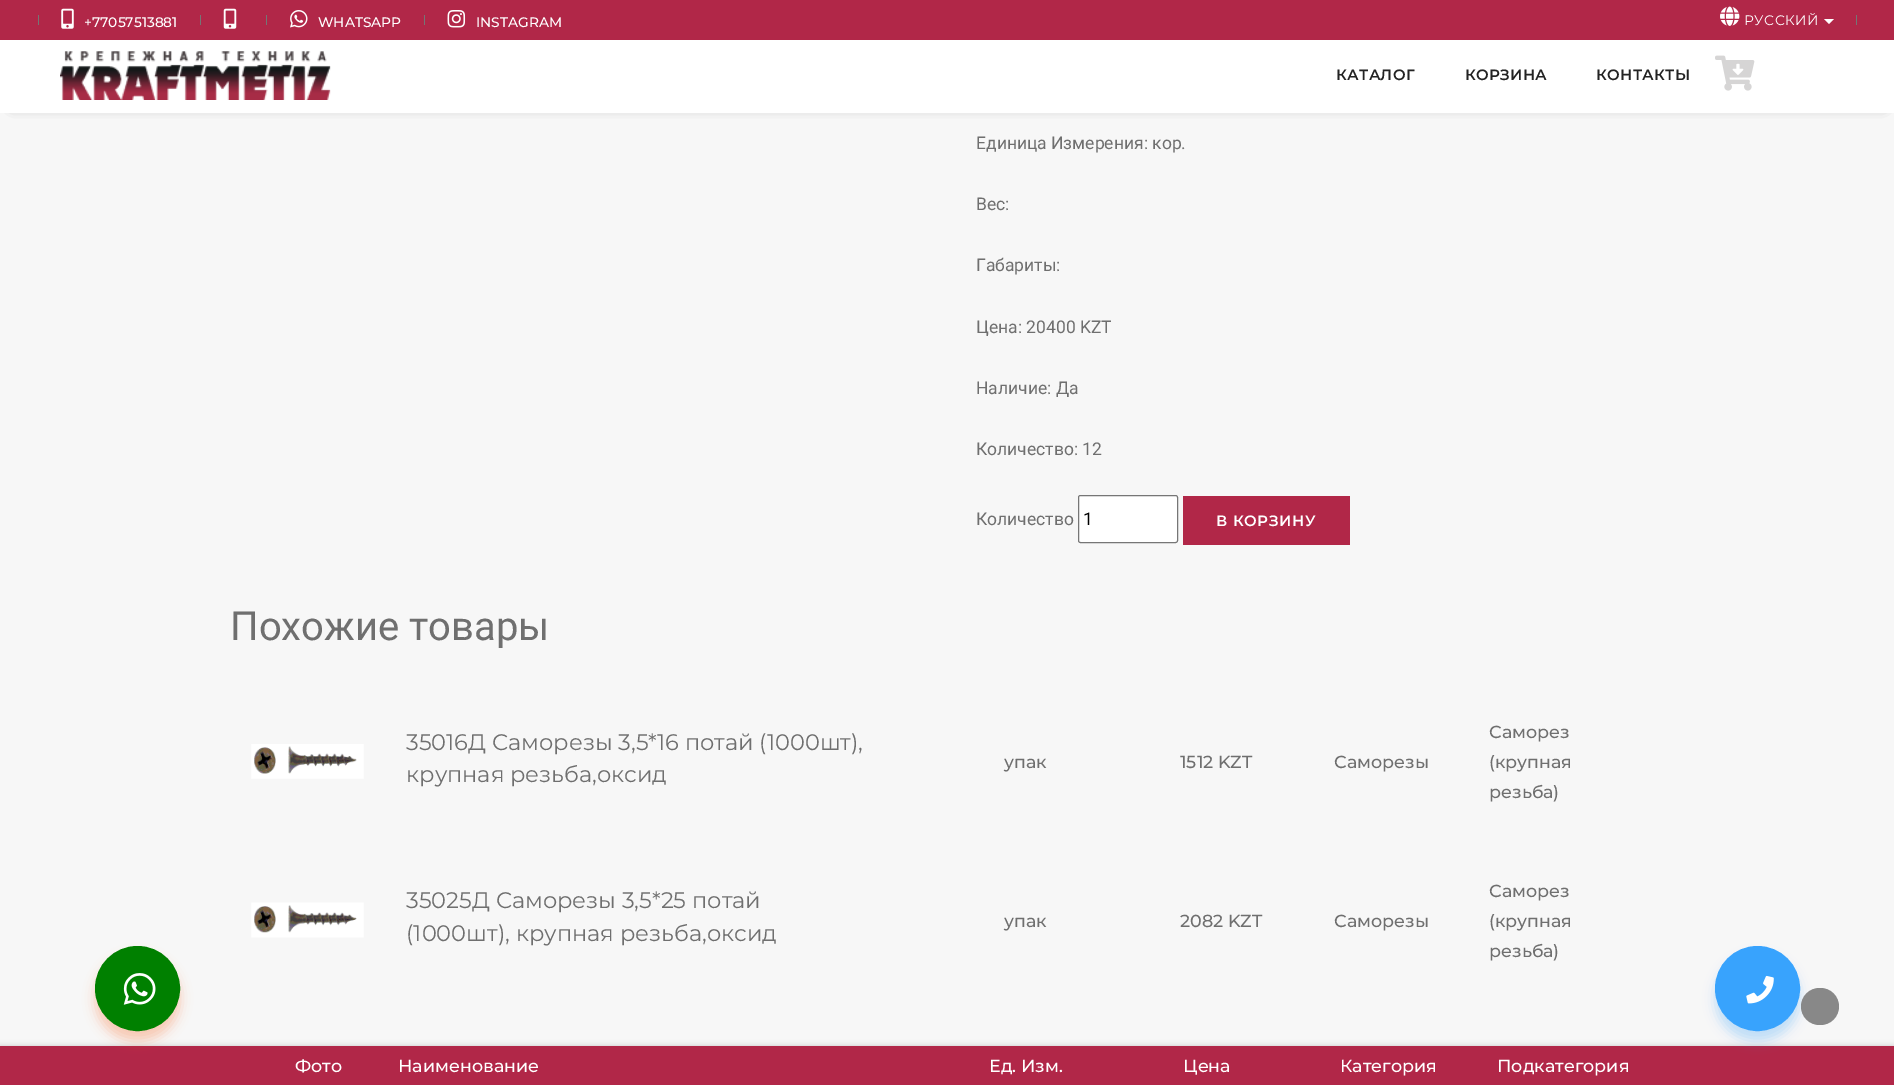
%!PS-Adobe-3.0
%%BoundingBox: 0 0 1894 1085
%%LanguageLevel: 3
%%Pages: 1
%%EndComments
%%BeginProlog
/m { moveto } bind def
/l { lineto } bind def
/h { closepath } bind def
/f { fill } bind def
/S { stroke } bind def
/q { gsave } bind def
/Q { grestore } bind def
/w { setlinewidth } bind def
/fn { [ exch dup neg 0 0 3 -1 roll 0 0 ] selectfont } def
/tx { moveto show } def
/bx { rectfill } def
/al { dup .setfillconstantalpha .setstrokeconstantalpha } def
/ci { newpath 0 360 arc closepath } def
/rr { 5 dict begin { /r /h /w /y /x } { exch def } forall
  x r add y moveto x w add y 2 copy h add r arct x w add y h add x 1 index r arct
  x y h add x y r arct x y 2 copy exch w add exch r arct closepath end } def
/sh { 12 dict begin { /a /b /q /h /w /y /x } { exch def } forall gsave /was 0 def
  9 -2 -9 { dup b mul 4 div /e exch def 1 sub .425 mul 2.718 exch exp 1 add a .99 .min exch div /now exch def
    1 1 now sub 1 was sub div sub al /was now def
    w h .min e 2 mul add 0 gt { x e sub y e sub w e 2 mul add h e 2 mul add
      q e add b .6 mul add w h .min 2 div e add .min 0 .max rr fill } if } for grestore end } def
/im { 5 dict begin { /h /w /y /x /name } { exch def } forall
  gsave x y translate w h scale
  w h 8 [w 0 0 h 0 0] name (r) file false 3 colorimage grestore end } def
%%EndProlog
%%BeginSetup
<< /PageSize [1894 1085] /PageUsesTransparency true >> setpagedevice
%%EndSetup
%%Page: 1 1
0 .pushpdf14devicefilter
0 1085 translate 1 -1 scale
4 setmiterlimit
0.969 setgray
0 0 1894 1085 bx
0 setgray
13 55 1870 50 0 6 0.6 sh
0.694 0.153 0.282 setrgbcolor
0 0 1894 40 bx
0.459 setgray
38 15 1 10 bx
(image0.raw) 61 8 13 21 im
/Montserrat-Medium 13.75 fn
1 setgray
(+77057513881) 84 27 tx
0.459 setgray
200 15 1 10 bx
(image1.raw) 223 8 14 21 im
266 15 1 10 bx
(image2.raw) 290 10 18 18 im
1 setgray
(WHATSAPP) 318 27 tx
0.459 setgray
424 15 1 10 bx
(image3.raw) 447 10 19 18 im
1 setgray
(INSTAGRAM) 476 27 tx
(image4.raw) 1720 6 20 20 im
/Montserrat-Regular 13.75 fn
1744 25 m 0.6 0 (РУССКИЙ) ashow
1824 19 m 1834 19 l 1829 24 l h f
0.459 setgray
1856 15 1 10 bx
1 setgray
0 40 1894 73 bx
(image5.raw) 60 51 271 49 im
/Montserrat-SemiBold 15 fn
0.137 setgray
1336 80 m 0.25 0 (КАТАЛОГ) ashow
1465 80 m 0.25 0 (КОРЗИНА) ashow
1596 80 m 0.25 0 (КОНТАКТЫ) ashow
(image6.raw) 1715 55 40 36 im
0 setgray
0 1046 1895 39 0 3 0.2 sh
0.694 0.153 0.282 setrgbcolor
0 1046 1894 39 bx
0.976 0.361 0.094 setrgbcolor
95 956 85 85 42.5 6 0.3 sh
0 0.502 0 setrgbcolor
137.5 988.5 41 ci q f Q
3 w
S
(image7.raw) 123 973 33 32 im
/Roboto-Regular 17.5 fn
0.435 setgray
(Единица Измерения: кор.) 976 149 tx
(Вес:) 976 210 tx
(Габариты:) 976 271 tx
(Цена: 20400 KZT) 976 333 tx
(Наличие: Да) 976 394 tx
(Количество: 12) 976 455 tx
(Количество) 976 525 tx
1 setgray
1078.5 495.5 99 47 2 rr q f Q
0.463 setgray
1 w
S
0 setgray
(1) 1083 525 tx
0.694 0.153 0.282 setrgbcolor
1183 496 167 49 bx
/Montserrat-SemiBold 15 fn
1 setgray
1216 526 m 0.6 0 (В КОРЗИНУ) ashow
/Roboto-Regular 40 fn
0.435 setgray
(Похожие товары) 230 640 tx
(image8.raw) 251 744 113 35 im
/Montserrat-Regular 22.5 fn
(35016Д Саморезы 3,5*16 потай \(1000шт\),) 406 750 tx
(крупная резьба,оксид) 406 782 tx
/Montserrat-Medium 17.5 fn
(упак) 1004 768 tx
(1512 KZT) 1180 768 tx
(Саморезы) 1334 768 tx
(Саморез) 1489 738 tx
(\(крупная) 1489 768 tx
(резьба\)) 1489 798 tx
(image9.raw) 251 902 113 36 im
/Montserrat-Regular 22.5 fn
(35025Д Саморезы 3,5*25 потай) 406 908 tx
(\(1000шт\), крупная резьба,оксид) 406 941 tx
/Montserrat-Medium 17.5 fn
(упак) 1004 927 tx
(2082 KZT) 1180 927 tx
(Саморезы) 1334 927 tx
(Саморез) 1489 897 tx
(\(крупная) 1489 927 tx
(резьба\)) 1489 957 tx
1 setgray
(Фото) 295 1072 tx
(Наименование) 398 1072 tx
(Ед. Изм.) 989 1072 tx
(Цена) 1183 1072 tx
(Категория) 1340 1072 tx
(Подкатегория) 1497 1072 tx
0.22 0.639 0.992 setrgbcolor
1715 956 85 85 42.5 6 0.3 sh
1757.5 988.5 41 ci q f Q
3 w
S
(image10.raw) 1746 975 28 29 im
0.99 al
0.529 setgray
1801 988 38 37 18.5 rr f
.poppdf14devicefilter showpage
%%EOF
